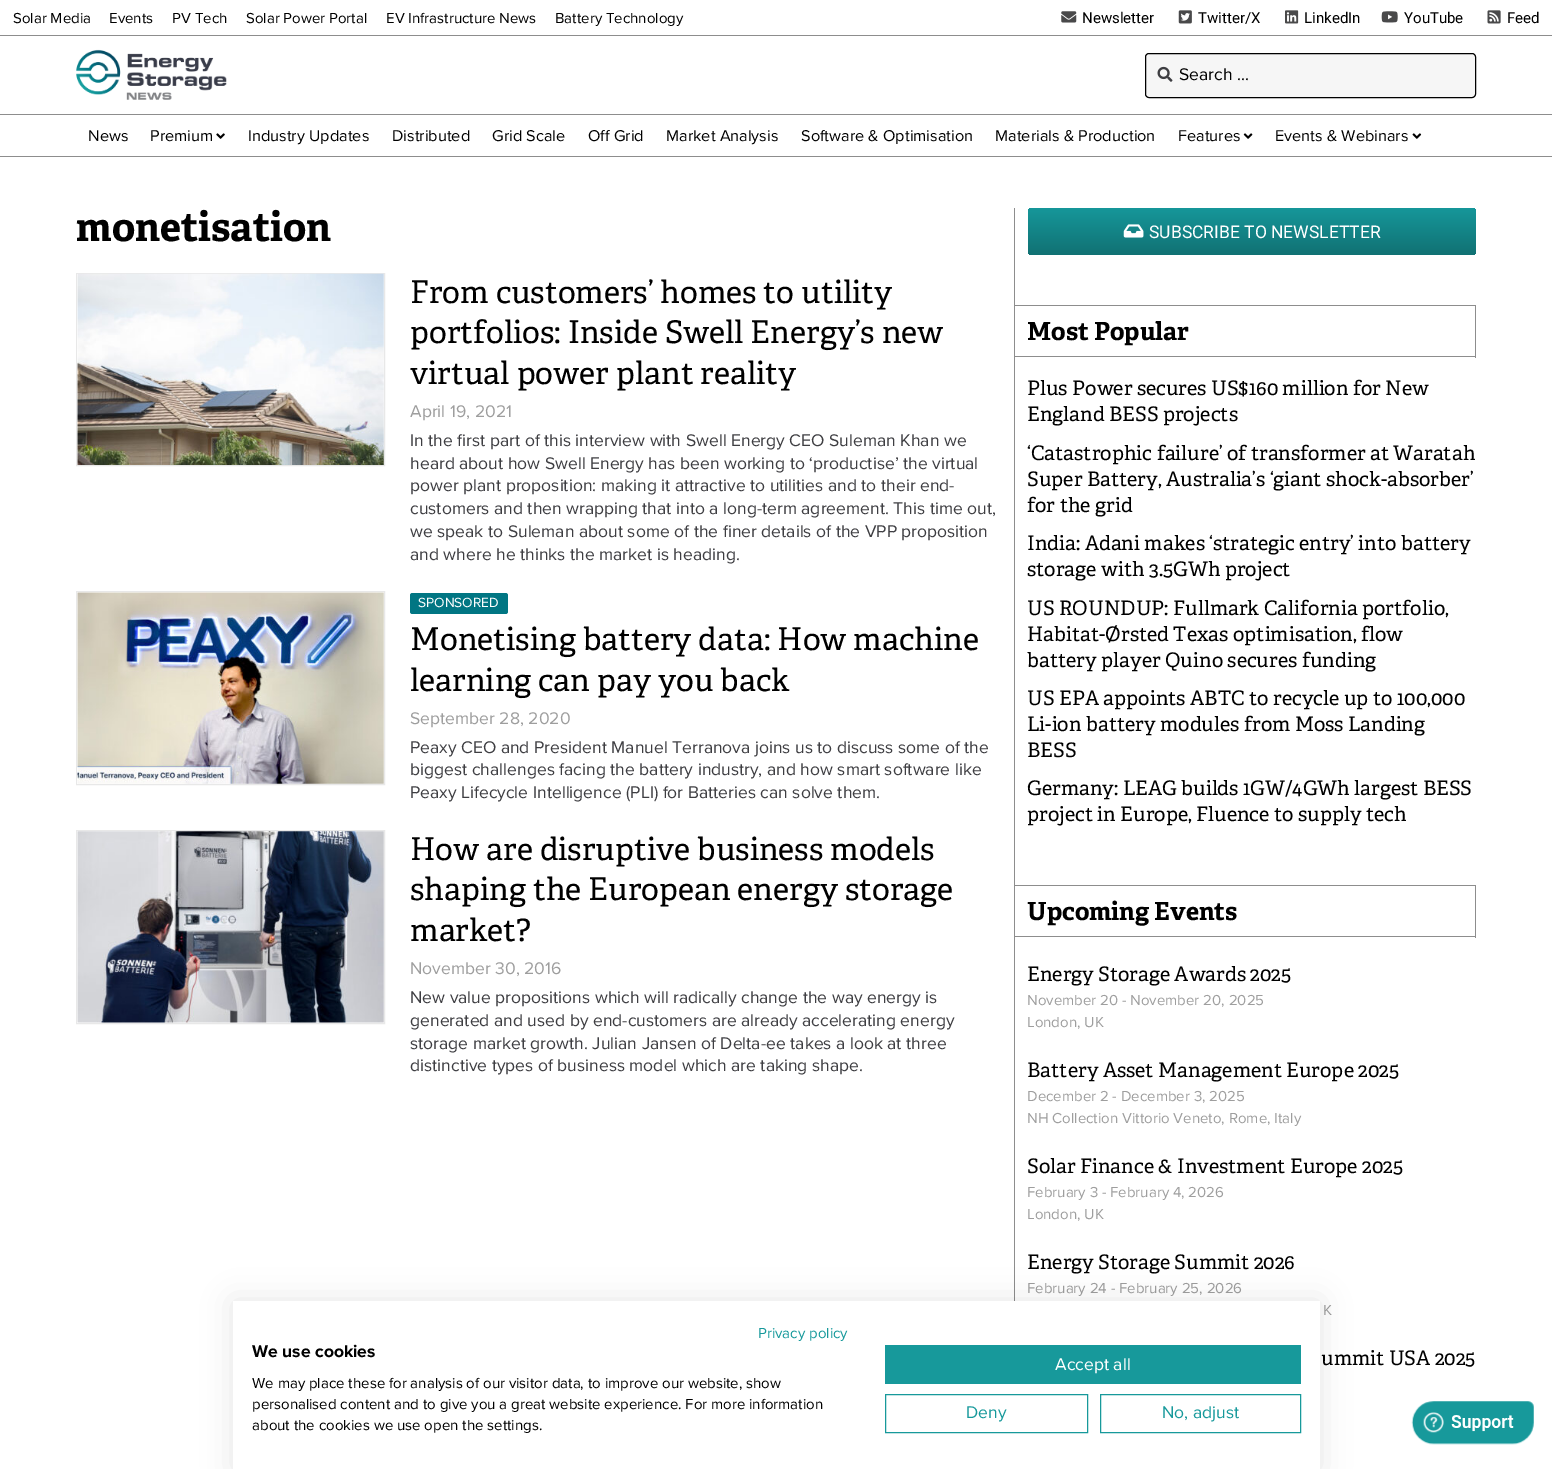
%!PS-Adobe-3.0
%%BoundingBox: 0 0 1552 1469
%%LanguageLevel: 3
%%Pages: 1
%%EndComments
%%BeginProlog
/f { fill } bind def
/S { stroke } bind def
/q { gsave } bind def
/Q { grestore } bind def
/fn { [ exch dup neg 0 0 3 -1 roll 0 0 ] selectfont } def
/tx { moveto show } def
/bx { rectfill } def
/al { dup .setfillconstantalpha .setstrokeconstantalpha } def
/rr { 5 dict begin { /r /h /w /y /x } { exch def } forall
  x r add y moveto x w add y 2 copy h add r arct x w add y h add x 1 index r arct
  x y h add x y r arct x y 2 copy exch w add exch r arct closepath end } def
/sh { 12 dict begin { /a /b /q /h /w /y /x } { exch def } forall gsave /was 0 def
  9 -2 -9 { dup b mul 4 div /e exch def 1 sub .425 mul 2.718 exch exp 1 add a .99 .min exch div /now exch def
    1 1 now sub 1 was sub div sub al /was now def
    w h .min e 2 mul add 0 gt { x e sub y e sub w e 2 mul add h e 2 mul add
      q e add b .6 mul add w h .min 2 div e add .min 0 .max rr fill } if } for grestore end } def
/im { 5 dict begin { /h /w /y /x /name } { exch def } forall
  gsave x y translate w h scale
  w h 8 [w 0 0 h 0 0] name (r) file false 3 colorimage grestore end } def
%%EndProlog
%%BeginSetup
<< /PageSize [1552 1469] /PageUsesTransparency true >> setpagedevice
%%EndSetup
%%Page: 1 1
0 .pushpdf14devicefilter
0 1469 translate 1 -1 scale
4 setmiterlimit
1 setgray
0 0 1552 1469 bx
0.553 setgray
0 35 1552 1 bx
/ProximaNova-Regular 15 fn
0 setgray
(Solar Media) 13 23 tx
(Events) 109 23 tx
(PV Tech) 172 23 tx
(Solar Power Portal) 246 23 tx
(EV Infrastructure News) 386 23 tx
(Battery Technology) 555 23 tx
(image0.raw) 1061 11 16 12 im
/Roboto-Regular 15 fn
(Newsletter) 1082 23 tx
(image1.raw) 1178 10 14 14 im
(Twitter/X) 1198 23 tx
(image2.raw) 1285 10 14 14 im
(LinkedIn) 1304 23 tx
(image3.raw) 1381 11 17 12 im
(YouTube) 1404 23 tx
(image4.raw) 1487 10 14 14 im
(Feed) 1507 23 tx
(image5.raw) 76 49 151 51 im
0.965 setgray
1145.5 53.5 330 44 3.5 rr q f Q
0 setgray
S
(image6.raw) 1157 66 16 16 im
/ProximaNova-Regular 17.5 fn
(Search ...) 1179 80 tx
0.553 setgray
0 114 1552 1 bx
0 156 1552 1 bx
/ProximaNova-Regular 16.25 fn
0 setgray
(News) 88 141 tx
(Premium) 150 141 tx
(image7.raw) 216 133 9 6 im
(Industry Updates) 248 141 tx
(Distributed) 392 141 tx
(Grid Scale) 492 141 tx
(Off Grid) 588 141 tx
(Market Analysis) 666 141 tx
(Software & Optimisation) 801 141 tx
(Materials & Production) 995 141 tx
(Features) 1178 141 tx
(image8.raw) 1243 133 10 6 im
(Events & Webinars) 1275 141 tx
(image9.raw) 1412 133 10 6 im
/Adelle-Bold 40 fn
(monetisation) 76 241 tx
0.91 setgray
76.5 273.5 308 192 rectstroke
(image10.raw) 77 273 307 192 im
/Adelle-Regular 31.25 fn
0 setgray
(From customers’ homes to utility) 410 303 tx
(portfolios: Inside Swell Energy’s new) 410 343 tx
(virtual power plant reality) 410 384 tx
/ProximaNova-Regular 17.5 fn
0.62 setgray
(April 19, 2021) 410 417 tx
0.243 0.243 0.259 setrgbcolor
(In the first part of this interview with Swell Energy CEO Suleman Khan we) 410 446 tx
(heard about how Swell Energy has been working to ‘productise’ the virtual) 410 469 tx
(power plant proposition: making it attractive to utilities and to their end-) 410 491 tx
(customers and then wrapping that into a long-term agreement. This time out,) 410 514 tx
(we speak to Suleman about some of the finer details of the VPP proposition) 410 537 tx
(and where he thinks the market is heading.) 410 560 tx
0.91 setgray
76.5 591.5 308 193 rectstroke
(image11.raw) 77 592 307 192 im
0.004 0.463 0.514 setrgbcolor
410 593 98 21 2.5 rr f
/ProximaNova-Regular 13.75 fn
1 setgray
(SPONSORED) 418 607 tx
/Adelle-Regular 31.25 fn
0 setgray
(Monetising battery data: How machine) 410 650 tx
(learning can pay you back) 410 691 tx
/ProximaNova-Regular 17.5 fn
0.62 setgray
(September 28, 2020) 410 724 tx
0.243 0.243 0.259 setrgbcolor
(Peaxy CEO and President Manuel Terranova joins us to discuss some of the) 410 753 tx
(biggest challenges facing the battery industry, and how smart software like) 410 775 tx
(Peaxy Lifecycle Intelligence \(PLI\) for Batteries can solve them.) 410 798 tx
0.91 setgray
76.5 830.5 308 193 rectstroke
(image12.raw) 77 831 307 192 im
/Adelle-Regular 31.25 fn
0 setgray
(How are disruptive business models) 410 860 tx
(shaping the European energy storage) 410 900 tx
(market?) 410 941 tx
/ProximaNova-Regular 17.5 fn
0.62 setgray
(November 30, 2016) 410 974 tx
0.243 0.243 0.259 setrgbcolor
(New value propositions which will radically change the way energy is) 410 1003 tx
(generated and used by end-customers are already accelerating energy) 410 1026 tx
(storage market growth. Julian Jansen of Delta-ee takes a look at three) 410 1049 tx
(distinctive types of business model which are taking shape.) 410 1071 tx
0.553 setgray
1014 208 1 1093 bx
q 1028 208 448 47 4 rr clip newpath
<< /ShadingType 2 /ColorSpace /DeviceRGB /Coords [1252 207 1252 255] /Extend [true true] /Function << /FunctionType 2 /Domain [0 1] /C0 [0.086 0.596 0.608] /C1 [0.067 0.443 0.451] /N 1 >> >> shfill Q
(image13.raw) 1123 224 21 14 im
/Roboto-Regular 17.5 fn
1 setgray
(SUBSCRIBE TO NEWSLETTER) 1149 238 tx
0.553 setgray
1015 305 461 1 bx
1475 305 1 53 bx
1015 356 461 1 bx
/Adelle-Bold 25 fn
0 setgray
(Most Popular) 1027 340 tx
/Adelle-Regular 20 fn
(Plus Power secures US$160 million for New) 1027 395 tx
(England BESS projects) 1027 421 tx
(‘Catastrophic failure’ of transformer at Waratah) 1027 460 tx
(Super Battery, Australia’s ‘giant shock-absorber’) 1027 486 tx
(for the grid) 1027 512 tx
(India: Adani makes ‘strategic entry’ into battery) 1027 550 tx
(storage with 3.5GWh project) 1027 576 tx
(US ROUNDUP: Fullmark California portfolio,) 1027 615 tx
(Habitat-Ørsted Texas optimisation, flow) 1027 641 tx
(battery player Quino secures funding) 1027 667 tx
(US EPA appoints ABTC to recycle up to 100,000) 1027 705 tx
(Li-ion battery modules from Moss Landing) 1027 731 tx
(BESS) 1027 757 tx
(Germany: LEAG builds 1GW/4GWh largest BESS) 1027 795 tx
(project in Europe, Fluence to supply tech) 1027 821 tx
0.553 setgray
1015 885 461 1 bx
1475 885 1 53 bx
1015 936 461 1 bx
/Adelle-Bold 25 fn
0 setgray
(Upcoming Events) 1027 920 tx
/Adelle-Regular 20 fn
(Energy Storage Awards 2025) 1027 981 tx
/ProximaNova-Regular 15 fn
0.62 setgray
(November 20 - November 20, 2025) 1027 1005 tx
(London, UK) 1027 1027 tx
/Adelle-Regular 20 fn
0 setgray
(Battery Asset Management Europe 2025) 1027 1077 tx
/ProximaNova-Regular 15 fn
0.62 setgray
(December 2 - December 3, 2025) 1027 1101 tx
(NH Collection Vittorio Veneto, Rome, Italy) 1027 1123 tx
/Adelle-Regular 20 fn
0 setgray
(Solar Finance & Investment Europe 2025) 1027 1173 tx
/ProximaNova-Regular 15 fn
0.62 setgray
(February 3 - February 4, 2026) 1027 1197 tx
(London, UK) 1027 1219 tx
/Adelle-Regular 20 fn
0 setgray
(Energy Storage Summit 2026) 1027 1269 tx
/ProximaNova-Regular 15 fn
0.62 setgray
(February 24 - February 25, 2026) 1027 1293 tx
(K) 1323 1315 tx
/Adelle-Regular 20 fn
0 setgray
(ummit USA 2025) 1321 1365 tx
233 1301 1087 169 0 15 0.1 sh
1 setgray
233 1301 1087 168 bx
/ProximaNova-Regular 15 fn
0.09 0.6 0.608 setrgbcolor
(Privacy policy) 758 1338 tx
/ProximaNova-Bold 17.5 fn
0 setgray
(We use cookies) 252 1357 tx
/ProximaNova-Regular 15 fn
(We may place these for analysis of our visitor data, to improve our website, show) 252 1388 tx
(personalised content and to give you a great website experience. For more information) 252 1409 tx
(about the cookies we use open the settings.) 252 1430 tx
0.09 0.6 0.608 setrgbcolor
885 1345 416 39 bx
/ProximaNova-Regular 17.5 fn
1 setgray
(Accept all) 1055 1370 tx
0.09 0.6 0.608 setrgbcolor
885.5 1394.5 202 38 rectstroke
(Deny) 966 1418 tx
1100.5 1394.5 200 38 rectstroke
(No, adjust) 1162 1418 tx
(image14.raw) 1411 1401 123 44 im
.poppdf14devicefilter showpage
%%EOF
